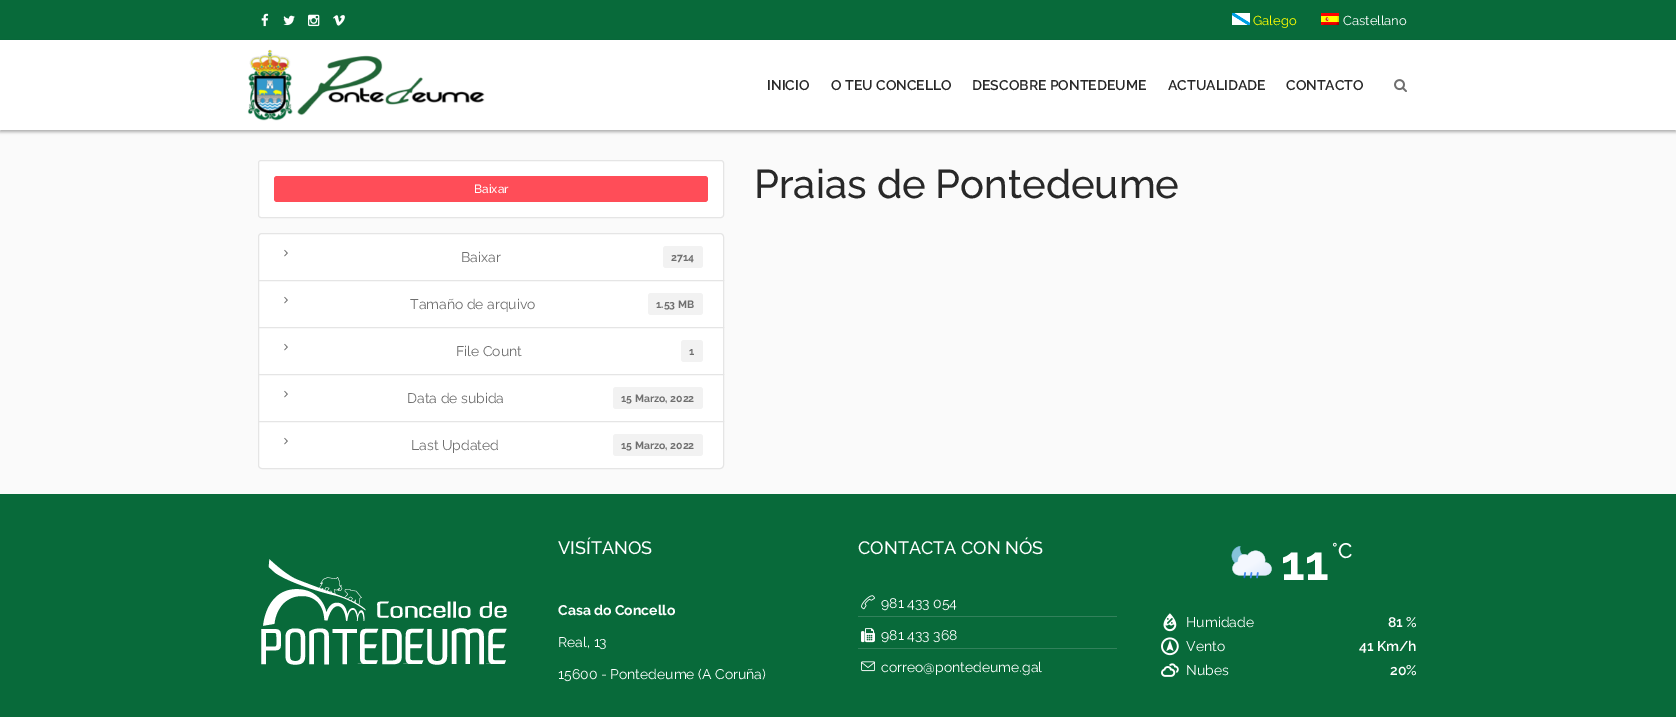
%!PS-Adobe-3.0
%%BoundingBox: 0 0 1676 717
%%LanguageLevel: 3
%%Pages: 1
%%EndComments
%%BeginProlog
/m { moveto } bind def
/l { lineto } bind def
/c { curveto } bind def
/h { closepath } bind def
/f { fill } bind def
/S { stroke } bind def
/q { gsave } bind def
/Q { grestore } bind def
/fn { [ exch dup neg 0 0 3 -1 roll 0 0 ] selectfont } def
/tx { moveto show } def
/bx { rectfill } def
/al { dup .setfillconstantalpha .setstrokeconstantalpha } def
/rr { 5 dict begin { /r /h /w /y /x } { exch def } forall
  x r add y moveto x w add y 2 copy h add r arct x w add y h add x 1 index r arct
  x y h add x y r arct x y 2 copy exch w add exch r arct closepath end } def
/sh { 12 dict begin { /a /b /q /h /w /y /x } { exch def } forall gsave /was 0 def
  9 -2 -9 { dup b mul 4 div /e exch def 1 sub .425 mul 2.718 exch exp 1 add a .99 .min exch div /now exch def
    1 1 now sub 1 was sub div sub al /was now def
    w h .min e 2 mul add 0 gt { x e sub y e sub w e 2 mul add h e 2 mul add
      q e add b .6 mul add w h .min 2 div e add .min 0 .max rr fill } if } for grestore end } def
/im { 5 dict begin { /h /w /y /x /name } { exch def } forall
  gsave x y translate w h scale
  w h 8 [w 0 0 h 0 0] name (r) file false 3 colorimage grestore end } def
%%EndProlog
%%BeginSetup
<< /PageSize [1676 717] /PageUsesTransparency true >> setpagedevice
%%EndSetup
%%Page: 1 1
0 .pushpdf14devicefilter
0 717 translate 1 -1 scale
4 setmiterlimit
0.98 setgray
0 0 1676 717 bx
0.031 0.416 0.227 setrgbcolor
0 0 1676 40 bx
(image0.raw) 261 13 8 14 im
(image1.raw) 283 15 12 11 im
(image2.raw) 308 14 12 13 im
(image3.raw) 333 15 12 11 im
(image4.raw) 1232 13 18 12 im
/Raleway-Regular 13 fn
1 1 0 setrgbcolor
(Galego) 1253 25 tx
(image5.raw) 1321 13 18 12 im
1 setgray
(Castellano) 1343 25 tx
0 setgray
0 42 1676 90 0 1.5 0.3 sh
1 setgray
0 40 1676 90 bx
(image6.raw) 247 49 238 72 im
/Raleway-SemiBold 14 fn
0.157 setgray
(INICIO) 767 90 tx
(O TEU CONCELLO) 831 90 tx
(DESCOBRE PONTEDEUME) 972 90 tx
(ACTUALIDADE) 1168 90 tx
(CONTACTO) 1286 90 tx
(image7.raw) 1394 79 13 13 im
1 setgray
258.5 160.5 465 57 2.5 rr q f Q
0.898 setgray
S
1 0.302 0.345 setrgbcolor
274 176 434 26 3 rr f
/Raleway-Medium 12 fn
1 setgray
(Baixar) 474 193 tx
262 233.5 m 720 233.5 l 722 233.5 723.5 235 723.5 237 c 723.5 280.5 l 258.5 280.5 l 258.5 237 l 258.5 235 260 233.5 262 233.5 c h q f Q
0.898 setgray
S
(image8.raw) 284 249 4 8 im
/Raleway-Regular 14 fn
0.435 setgray
(Baixar) 461 262 tx
0.949 setgray
663 246 40 22 3 rr f
/Raleway-Bold 10.5 fn
0.435 setgray
(2714) 671 261 tx
1 setgray
258.5 280.5 m 723.5 280.5 l 723.5 327.5 l 258.5 327.5 l h q f Q
0.898 setgray
S
(image8.raw) 284 296 4 8 im
/Raleway-Regular 14 fn
0.435 setgray
(Tamaño de arquivo) 410 309 tx
0.949 setgray
648 293 55 22 3 rr f
/Raleway-Bold 10.5 fn
0.435 setgray
(1.53 MB) 656 308 tx
1 setgray
258.5 327.5 m 723.5 327.5 l 723.5 374.5 l 258.5 374.5 l h q f Q
0.898 setgray
S
(image8.raw) 284 343 4 8 im
/Raleway-Regular 14 fn
0.435 setgray
(File Count) 456 356 tx
0.949 setgray
681 340 22 22 3 rr f
/Raleway-Bold 10.5 fn
0.435 setgray
(1) 689 355 tx
1 setgray
258.5 374.5 m 723.5 374.5 l 723.5 421.5 l 258.5 421.5 l h q f Q
0.898 setgray
S
(image8.raw) 284 390 4 8 im
/Raleway-Regular 14 fn
0.435 setgray
(Data de subida) 407 403 tx
0.949 setgray
613 387 90 22 3 rr f
/Raleway-Bold 10.5 fn
0.435 setgray
(15 Marzo, 2022) 621 402 tx
1 setgray
258.5 421.5 m 723.5 421.5 l 723.5 465 l 723.5 467 722 468.5 720 468.5 c 262 468.5 l 260 468.5 258.5 467 258.5 465 c h q f Q
0.898 setgray
S
(image8.raw) 284 437 4 8 im
/Raleway-Regular 14 fn
0.435 setgray
(Last Updated) 411 450 tx
0.949 setgray
613 434 90 22 3 rr f
/Raleway-Bold 10.5 fn
0.435 setgray
(15 Marzo, 2022) 621 449 tx
/Raleway-Medium 40 fn
0.157 setgray
(Praias de Pontedeume) 754 198 tx
0.031 0.416 0.227 setrgbcolor
0 494 1676 223 bx
(image9.raw) 261 559 246 106 im
/Raleway-Medium 18 fn
1 setgray
(VISÍTANOS) 558 554 tx
/Raleway-Bold 14 fn
(Casa do Concello) 558 615 tx
/Raleway-Regular 14 fn
(Real, 13) 558 647 tx
(15600 - Pontedeume \(A Coruña\)) 558 679 tx
/Raleway-Medium 18 fn
(CONTACTA CON NÓS) 858 554 tx
0.196 0.506 0.357 setrgbcolor
858 616 259 1 bx
(image10.raw) 861 595 14 15 im
/Raleway-Regular 14 fn
1 setgray
(981 433 054) 881 608 tx
0.196 0.506 0.357 setrgbcolor
858 648 259 1 bx
(image11.raw) 861 628 14 15 im
1 setgray
(981 433 368) 881 640 tx
(image12.raw) 861 661 14 11 im
(correo@pontedeume.gal) 881 672 tx
(image13.raw) 1231 546 41 33 im
/Raleway-Bold 48 fn
(11) 1281 580 tx
/Raleway-Medium 21 fn
(°C) 1332 558 tx
(image14.raw) 1163 613 14 19 im
/Raleway-Regular 14 fn
(Humidade) 1186 627 tx
/Raleway-SemiBold 14 fn
(81 %) 1388 627 tx
(image15.raw) 1161 637 18 19 im
/Raleway-Regular 14 fn
(Vento) 1186 651 tx
/Raleway-SemiBold 14 fn
(41 Km/h) 1359 651 tx
(image16.raw) 1161 663 18 14 im
/Raleway-Regular 14 fn
(Nubes) 1186 675 tx
/Raleway-SemiBold 14 fn
(20%) 1390 675 tx
.poppdf14devicefilter showpage
%%EOF
